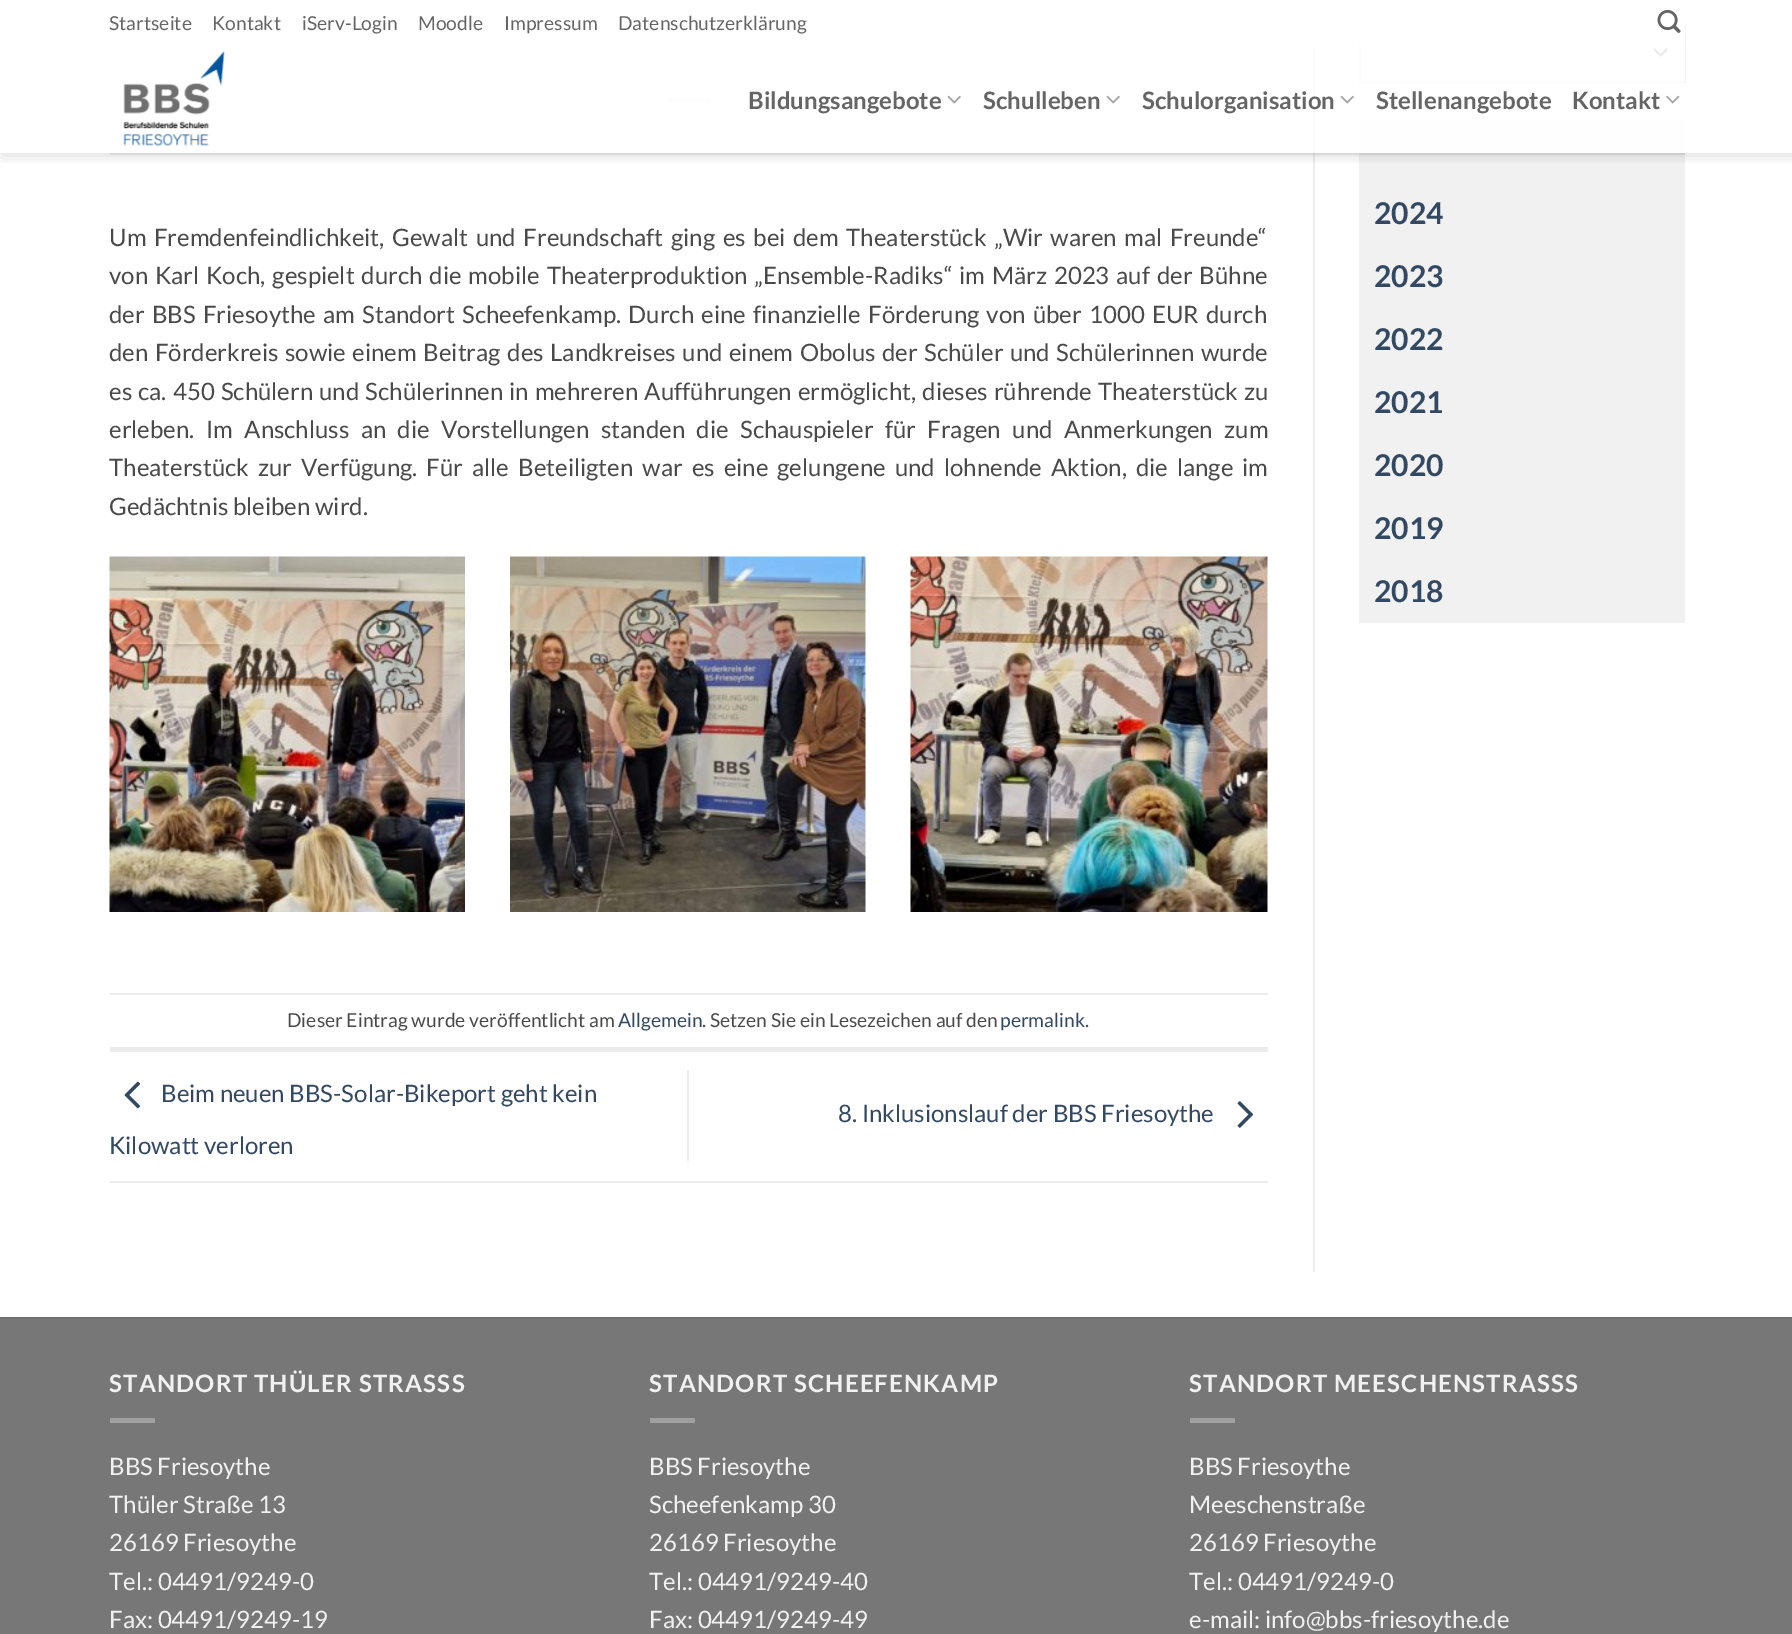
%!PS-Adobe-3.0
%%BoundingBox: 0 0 1792 1634
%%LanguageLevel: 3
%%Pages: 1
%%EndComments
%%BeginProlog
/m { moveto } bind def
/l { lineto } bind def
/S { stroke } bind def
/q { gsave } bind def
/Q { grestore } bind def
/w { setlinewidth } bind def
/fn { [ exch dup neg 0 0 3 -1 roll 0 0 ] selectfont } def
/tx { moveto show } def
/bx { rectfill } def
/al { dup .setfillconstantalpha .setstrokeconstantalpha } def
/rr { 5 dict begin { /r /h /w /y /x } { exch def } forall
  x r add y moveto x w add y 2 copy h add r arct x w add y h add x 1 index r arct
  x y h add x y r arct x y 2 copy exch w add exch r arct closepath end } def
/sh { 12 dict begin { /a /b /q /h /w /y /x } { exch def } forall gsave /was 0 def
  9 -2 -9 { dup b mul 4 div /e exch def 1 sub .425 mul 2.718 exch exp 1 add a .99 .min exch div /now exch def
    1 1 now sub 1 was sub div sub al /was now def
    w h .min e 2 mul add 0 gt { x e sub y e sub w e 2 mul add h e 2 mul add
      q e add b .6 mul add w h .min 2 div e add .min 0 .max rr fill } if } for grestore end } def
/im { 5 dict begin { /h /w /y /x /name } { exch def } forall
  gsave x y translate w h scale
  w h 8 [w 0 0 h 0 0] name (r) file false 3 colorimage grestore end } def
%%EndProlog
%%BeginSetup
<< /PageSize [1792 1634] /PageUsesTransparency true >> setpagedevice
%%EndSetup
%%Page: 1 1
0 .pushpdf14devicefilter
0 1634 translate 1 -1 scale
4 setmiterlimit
1 setgray
0 0 1792 1634 bx
0.902 setgray
666 98 45 5 bx
0.925 setgray
1313 45 2 1227 bx
0.2 setgray
2 w
1 setlinecap
1 setlinejoin
1654.5 49.5 m 1660.5 55.5 l 1666.5 49.5 l S
0.867 setgray
0 setlinecap
0 setlinejoin
1360 25 324 57 rectstroke
0.945 setgray
1359 119 326 504 bx
q
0 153 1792 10 rectclip
0 setgray
2 2 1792 153 0 7.5 0.15 sh
Q
1 setgray
1359 24 326 21 bx
/Lato-Regular 19.25 fn
0.396 setgray
(Startseite) 109 30 tx
(Kontakt) 212 30 tx
(iServ-Login) 302 30 tx
(Moodle) 418 30 tx
(Impressum) 504 30 tx
(Datenschutzerklärung) 618 30 tx
(image0.raw) 1657 9 24 24 im
0.9 al
1 setgray
666 45 1019 108 bx
1 al
(image1.raw) 123 51 102 96 im
/Lato-Bold 24 fn
0.396 setgray
(Bildungsangebote) 748 109 tx
(image2.raw) 947 95 14 9 im
(Schulleben) 983 109 tx
(image2.raw) 1106 95 14 9 im
(Schulorganisation) 1142 109 tx
(image2.raw) 1340 95 14 9 im
(Stellenangebote) 1376 109 tx
(Kontakt) 1572 109 tx
(image3.raw) 1666 95 14 9 im
0.1 al
0.29 setgray
110 153 1575 2 bx
/Lato-Regular 24 fn
1 al
109 246 m 3 0 32 (Um Fremdenfeindlichkeit, Gewalt und Freundschaft ging es bei dem Theaterstück „Wir waren mal Freunde“) widthshow
109 284 m 2.25 0 32 (von Karl Koch, gespielt durch die mobile Theaterproduktion „Ensemble-Radiks“ im März 2023 auf der Bühne) widthshow
109 323 m 2.6 0 32 (der BBS Friesoythe am Standort Scheefenkamp. Durch eine finanzielle Förderung von über 1000 EUR durch) widthshow
109 361 m 1.9 0 32 (den Förderkreis sowie einem Beitrag des Landkreises und einem Obolus der Schüler und Schülerinnen wurde) widthshow
109 400 m 1.5 0 32 (es ca. 450 Schülern und Schülerinnen in mehreren Aufführungen ermöglicht, dieses rührende Theaterstück zu) widthshow
109 438 m 6.75 0 32 (erleben. Im Anschluss an die Vorstellungen standen die Schauspieler für Fragen und Anmerkungen zum) widthshow
109 476 m 4.4 0 32 (Theaterstück zur Verfügung. Für alle Beteiligten war es eine gelungene und lohnende Aktion, die lange im) widthshow
(Gedächtnis bleiben wird.) 109 515 tx
(image4.raw) 109 556 356 356 im
(image5.raw) 510 556 356 356 im
(image6.raw) 910 556 358 356 im
0.925 setgray
110 993 1158 2 bx
110 1047 1158 5 bx
/Lato-Regular 19.25 fn
0.29 setgray
(Dieser Eintrag wurde veröffentlicht am) 287 1027 tx
0.2 0.282 0.384 setrgbcolor
(Allgemein) 618 1027 tx
0.29 setgray
(. Setzen Sie ein Lesezeichen auf den) 702 1027 tx
0.2 0.282 0.384 setrgbcolor
(permalink) 1000 1027 tx
0.29 setgray
(.) 1085 1027 tx
0.925 setgray
110 1181 1158 2 bx
(image7.raw) 124 1081 17 28 im
/Lato-Regular 24 fn
0.2 0.282 0.384 setrgbcolor
(Beim neuen BBS-Solar-Bikeport geht kein) 161 1102 tx
(Kilowatt verloren) 109 1154 tx
0.925 setgray
687 1070 2 91 bx
0.2 0.282 0.384 setrgbcolor
(8. Inklusionslauf der BBS Friesoythe) 838 1122 tx
(image8.raw) 1237 1101 17 27 im
/Lato-Bold 30 fn
(2024) 1374 224 tx
(2023) 1374 287 tx
(2022) 1374 350 tx
(2021) 1374 413 tx
(2020) 1374 476 tx
(2019) 1374 539 tx
(2018) 1374 602 tx
0.467 setgray
0 1319 1792 315 bx
0.443 setgray
0 1317 1792 2 bx
/Lato-Bold 24 fn
0.945 setgray
109 1392 m 1.2 0 (STANDORT THÜLER STRASSS) ashow
0.627 setgray
110 1418 45 5 bx
/Lato-Regular 24 fn
0.945 setgray
(BBS Friesoythe) 109 1475 tx
(Thüler Straße 13) 109 1513 tx
(26169 Friesoythe) 109 1551 tx
(Tel.: 04491/9249-0) 109 1590 tx
(Fax: 04491/9249-19) 109 1628 tx
/Lato-Bold 24 fn
649 1392 m 1.2 0 (STANDORT SCHEEFENKAMP) ashow
0.627 setgray
650 1418 45 5 bx
/Lato-Regular 24 fn
0.945 setgray
(BBS Friesoythe) 649 1475 tx
(Scheefenkamp 30) 649 1513 tx
(26169 Friesoythe) 649 1551 tx
(Tel.: 04491/9249-40) 649 1590 tx
(Fax: 04491/9249-49) 649 1628 tx
/Lato-Bold 24 fn
1189 1392 m 1.2 0 (STANDORT MEESCHENSTRASSS) ashow
0.627 setgray
1190 1418 45 5 bx
/Lato-Regular 24 fn
0.945 setgray
(BBS Friesoythe) 1189 1475 tx
(Meeschenstraße) 1189 1513 tx
(26169 Friesoythe) 1189 1551 tx
(Tel.: 04491/9249-0) 1189 1590 tx
(e-mail: info@bbs-friesoythe.de) 1189 1628 tx
.poppdf14devicefilter showpage
%%EOF
